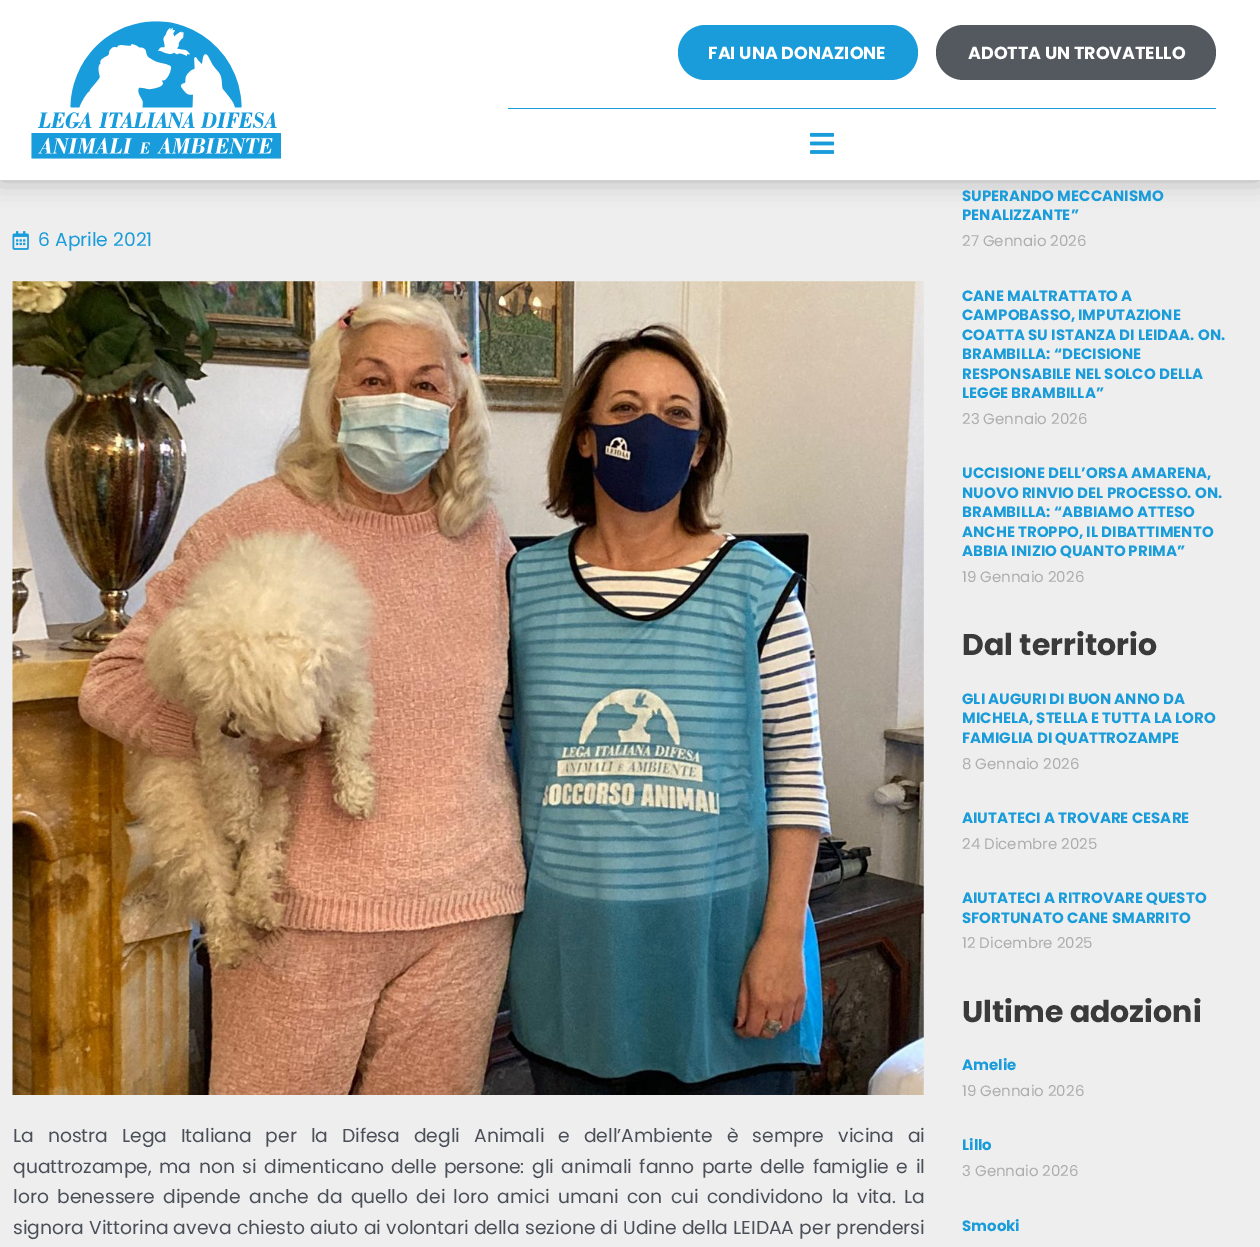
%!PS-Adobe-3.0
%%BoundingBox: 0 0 1260 1247
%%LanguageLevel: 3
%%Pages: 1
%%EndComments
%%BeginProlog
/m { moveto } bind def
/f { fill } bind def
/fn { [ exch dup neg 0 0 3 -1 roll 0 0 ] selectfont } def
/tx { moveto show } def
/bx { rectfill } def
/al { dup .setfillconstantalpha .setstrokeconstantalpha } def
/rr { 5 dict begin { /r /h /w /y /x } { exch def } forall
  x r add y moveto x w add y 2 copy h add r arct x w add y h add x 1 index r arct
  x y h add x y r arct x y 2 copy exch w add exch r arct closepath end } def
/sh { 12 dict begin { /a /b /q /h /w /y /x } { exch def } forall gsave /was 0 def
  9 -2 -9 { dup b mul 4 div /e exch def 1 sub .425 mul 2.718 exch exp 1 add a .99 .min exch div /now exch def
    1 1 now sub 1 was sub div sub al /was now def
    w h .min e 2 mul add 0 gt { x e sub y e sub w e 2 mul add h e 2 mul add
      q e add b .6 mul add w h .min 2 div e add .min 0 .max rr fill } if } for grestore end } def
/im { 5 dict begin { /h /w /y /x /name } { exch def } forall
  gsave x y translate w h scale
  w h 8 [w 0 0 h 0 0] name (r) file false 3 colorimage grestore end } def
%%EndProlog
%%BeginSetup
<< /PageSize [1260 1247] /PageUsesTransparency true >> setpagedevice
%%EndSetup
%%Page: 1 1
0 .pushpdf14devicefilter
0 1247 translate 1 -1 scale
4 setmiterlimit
0.933 setgray
0 0 1260 1247 bx
0 setgray
0 0 1260 180 0 12.5 0.25 sh
1 setgray
0 0 1260 180 bx
(image0.raw) 31 21 250 138 im
0.098 0.612 0.851 setrgbcolor
678 25 240 55 27.5 rr f
/Poppins-Bold 17.5 fn
1 setgray
(FAI UNA DONAZIONE) 708 59 tx
0.329 0.349 0.373 setrgbcolor
936 25 280 55 27.5 rr f
1 setgray
(ADOTTA UN TROVATELLO) 968 59 tx
0.098 0.612 0.851 setrgbcolor
508 108 708 1 bx
(image1.raw) 810 132 25 22 im
(image2.raw) 12 231 17 19 im
/Poppins-Regular 18.75 fn
(6 Aprile 2021) 38 246 tx
(image3.raw) 12 281 912 814 im
0.294 0.31 0.345 setrgbcolor
13 1142 m 8.9 0 32 (La nostra Lega Italiana per la Difesa degli Animali e dell’Ambiente è sempre vicina ai) widthshow
13 1173 m 2.5 0 32 (quattrozampe, ma non si dimenticano delle persone: gli animali fanno parte delle famiglie e il) widthshow
13 1203 m 3.25 0 32 (loro benessere dipende anche da quello dei loro amici umani con cui condividono la vita. La) widthshow
13 1234 m 0.25 0 32 (signora Vittorina aveva chiesto aiuto ai volontari della sezione di Udine della LEIDAA per prendersi) widthshow
/Poppins-Bold 15 fn
0.098 0.612 0.851 setrgbcolor
(SUPERANDO MECCANISMO) 962 201 tx
(PENALIZZANTE”) 962 220 tx
/Poppins-Regular 15 fn
0.678 setgray
(27 Gennaio 2026) 962 246 tx
/Poppins-Bold 15 fn
0.098 0.612 0.851 setrgbcolor
(CANE MALTRATTATO A) 962 301 tx
(CAMPOBASSO, IMPUTAZIONE) 962 320 tx
(COATTA SU ISTANZA DI LEIDAA. ON.) 962 340 tx
(BRAMBILLA: “DECISIONE) 962 359 tx
(RESPONSABILE NEL SOLCO DELLA) 962 379 tx
(LEGGE BRAMBILLA”) 962 398 tx
/Poppins-Regular 15 fn
0.678 setgray
(23 Gennaio 2026) 962 424 tx
/Poppins-Bold 15 fn
0.098 0.612 0.851 setrgbcolor
(UCCISIONE DELL’ORSA AMARENA,) 962 478 tx
(NUOVO RINVIO DEL PROCESSO. ON.) 962 498 tx
(BRAMBILLA: “ABBIAMO ATTESO) 962 517 tx
(ANCHE TROPPO, IL DIBATTIMENTO) 962 537 tx
(ABBIA INIZIO QUANTO PRIMA”) 962 556 tx
/Poppins-Regular 15 fn
0.678 setgray
(19 Gennaio 2026) 962 582 tx
/Poppins-Bold 30 fn
0.227 setgray
(Dal territorio) 962 655 tx
/Poppins-Bold 15 fn
0.098 0.612 0.851 setrgbcolor
(GLI AUGURI DI BUON ANNO DA) 962 704 tx
(MICHELA, STELLA E TUTTA LA LORO) 962 723 tx
(FAMIGLIA DI QUATTROZAMPE) 962 743 tx
/Poppins-Regular 15 fn
0.678 setgray
(8 Gennaio 2026) 962 769 tx
/Poppins-Bold 15 fn
0.098 0.612 0.851 setrgbcolor
(AIUTATECI A TROVARE CESARE) 962 823 tx
/Poppins-Regular 15 fn
0.678 setgray
(24 Dicembre 2025) 962 849 tx
/Poppins-Bold 15 fn
0.098 0.612 0.851 setrgbcolor
(AIUTATECI A RITROVARE QUESTO) 962 903 tx
(SFORTUNATO CANE SMARRITO) 962 923 tx
/Poppins-Regular 15 fn
0.678 setgray
(12 Dicembre 2025) 962 948 tx
/Poppins-Bold 30 fn
0.227 setgray
(Ultime adozioni) 962 1022 tx
/Poppins-Bold 15 fn
0.098 0.612 0.851 setrgbcolor
(Amelie) 962 1070 tx
/Poppins-Regular 15 fn
0.678 setgray
(19 Gennaio 2026) 962 1096 tx
/Poppins-Bold 15 fn
0.098 0.612 0.851 setrgbcolor
(Lillo) 962 1150 tx
/Poppins-Regular 15 fn
0.678 setgray
(3 Gennaio 2026) 962 1176 tx
/Poppins-Bold 15 fn
0.098 0.612 0.851 setrgbcolor
(Smooki) 962 1231 tx
.poppdf14devicefilter showpage
%%EOF
